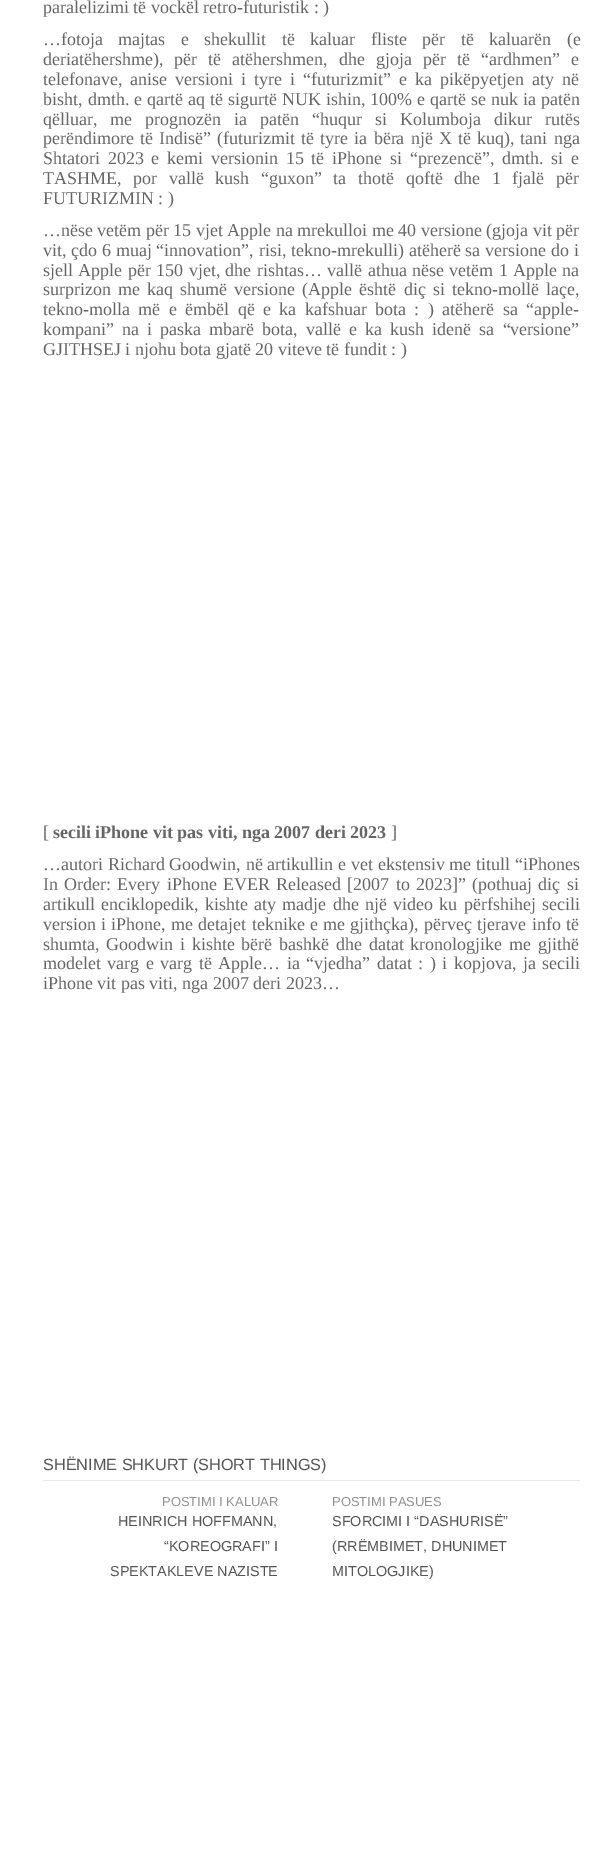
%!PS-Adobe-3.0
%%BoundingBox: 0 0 610 1851
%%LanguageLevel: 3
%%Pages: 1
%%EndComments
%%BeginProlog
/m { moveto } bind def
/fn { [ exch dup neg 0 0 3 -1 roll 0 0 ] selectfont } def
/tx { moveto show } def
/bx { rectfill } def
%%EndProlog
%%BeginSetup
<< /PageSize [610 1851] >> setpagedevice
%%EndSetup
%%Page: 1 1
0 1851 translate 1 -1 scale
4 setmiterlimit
1 setgray
0 0 610 1851 bx
/LiberationSerif-Regular 18 fn
0.4 setgray
(paralelizimi të vockël retro-futuristik : \)) 43 13 tx
43 45 m 11 0 32 (…fotoja majtas e shekullit të kaluar fliste për të kaluarën \(e) widthshow
43 65 m 6.5 0 32 (deriatëhershme\), për të atëhershmen, dhe gjoja për të “ardhmen” e) widthshow
43 85 m 3.5 0 32 (telefonave, anise versioni i tyre i “futurizmit” e ka pikëpyetjen aty në) widthshow
43 105 m 0.5 0 32 (bisht, dmth. e qartë aq të sigurtë NUK ishin, 100% e qartë se nuk ia patën) widthshow
43 125 m 8.5 0 32 (qëlluar, me prognozën ia patën “huqur si Kolumboja dikur rutës) widthshow
43 144 m 1.6 0 32 (perëndimore të Indisë” \(futurizmit të tyre ia bëra një X të kuq\), tani nga) widthshow
43 164 m 3.25 0 32 (Shtatori 2023 e kemi versionin 15 të iPhone si “prezencë”, dmth. si e) widthshow
43 184 m 7.1 0 32 (TASHME, por vallë kush “guxon” ta thotë qoftë dhe 1 fjalë për) widthshow
(FUTURIZMIN : \)) 43 204 tx
(…nëse vetëm për 15 vjet Apple na mrekulloi me 40 versione \(gjoja vit për) 43 236 tx
43 256 m 0.25 0 32 (vit, çdo 6 muaj “innovation”, risi, tekno-mrekulli\) atëherë sa versione do i) widthshow
43 276 m 0.9 0 32 (sjell Apple për 150 vjet, dhe rishtas… vallë athua nëse vetëm 1 Apple na) widthshow
43 295 m 2.6 0 32 (surprizon me kaq shumë versione \(Apple është diç si tekno-mollë laçe,) widthshow
43 315 m 3.9 0 32 (tekno-molla më e ëmbël që e ka kafshuar bota : \) atëherë sa “apple-) widthshow
43 335 m 3.6 0 32 (kompani” na i paska mbarë bota, vallë e ka kush idenë sa “versione”) widthshow
(GJITHSEJ i njohu bota gjatë 20 viteve të fundit : \)) 43 355 tx
([) 43 838 tx
/LiberationSerif-Bold 18 fn
(secili iPhone vit pas viti, nga 2007 deri 2023) 53 838 tx
/LiberationSerif-Regular 18 fn
(]) 391 838 tx
43 870 m 0.25 0 32 (…autori Richard Goodwin, në artikullin e vet ekstensiv me titull “iPhones) widthshow
43 890 m 1.75 0 32 (In Order: Every iPhone EVER Released [2007 to 2023]” \(pothuaj diç si) widthshow
43 910 m 1.75 0 32 (artikull enciklopedik, kishte aty madje dhe një video ku përfshihej secili) widthshow
43 930 m 0.75 0 32 (version i iPhone, me detajet teknike e me gjithçka\), përveç tjerave info të) widthshow
43 950 m 2.25 0 32 (shumta, Goodwin i kishte bërë bashkë dhe datat kronologjike me gjithë) widthshow
43 969 m 2 0 32 (modelet varg e varg të Apple… ia “vjedha” datat : \) i kopjova, ja secili) widthshow
(iPhone vit pas viti, nga 2007 deri 2023…) 43 989 tx
0.906 setgray
43 1480 537 1 bx
/LiberationSans-Regular 16.25 fn
0.333 setgray
(SHËNIME SHKURT \(SHORT THINGS\)) 43 1470 tx
/LiberationSans-Regular 13 fn
0.569 setgray
(POSTIMI I KALUAR) 162 1506 tx
/LiberationSans-Regular 14.4 fn
0.333 setgray
(HEINRICH HOFFMANN,) 118 1526 tx
(“KOREOGRAFI” I) 164 1551 tx
(SPEKTAKLEVE NAZISTE) 110 1576 tx
/LiberationSans-Regular 13 fn
0.569 setgray
(POSTIMI PASUES) 332 1506 tx
/LiberationSans-Regular 14.4 fn
0.333 setgray
(SFORCIMI I “DASHURISË”) 332 1526 tx
(\(RRËMBIMET, DHUNIMET) 332 1551 tx
(MITOLOGJIKE\)) 332 1576 tx
showpage
%%EOF
